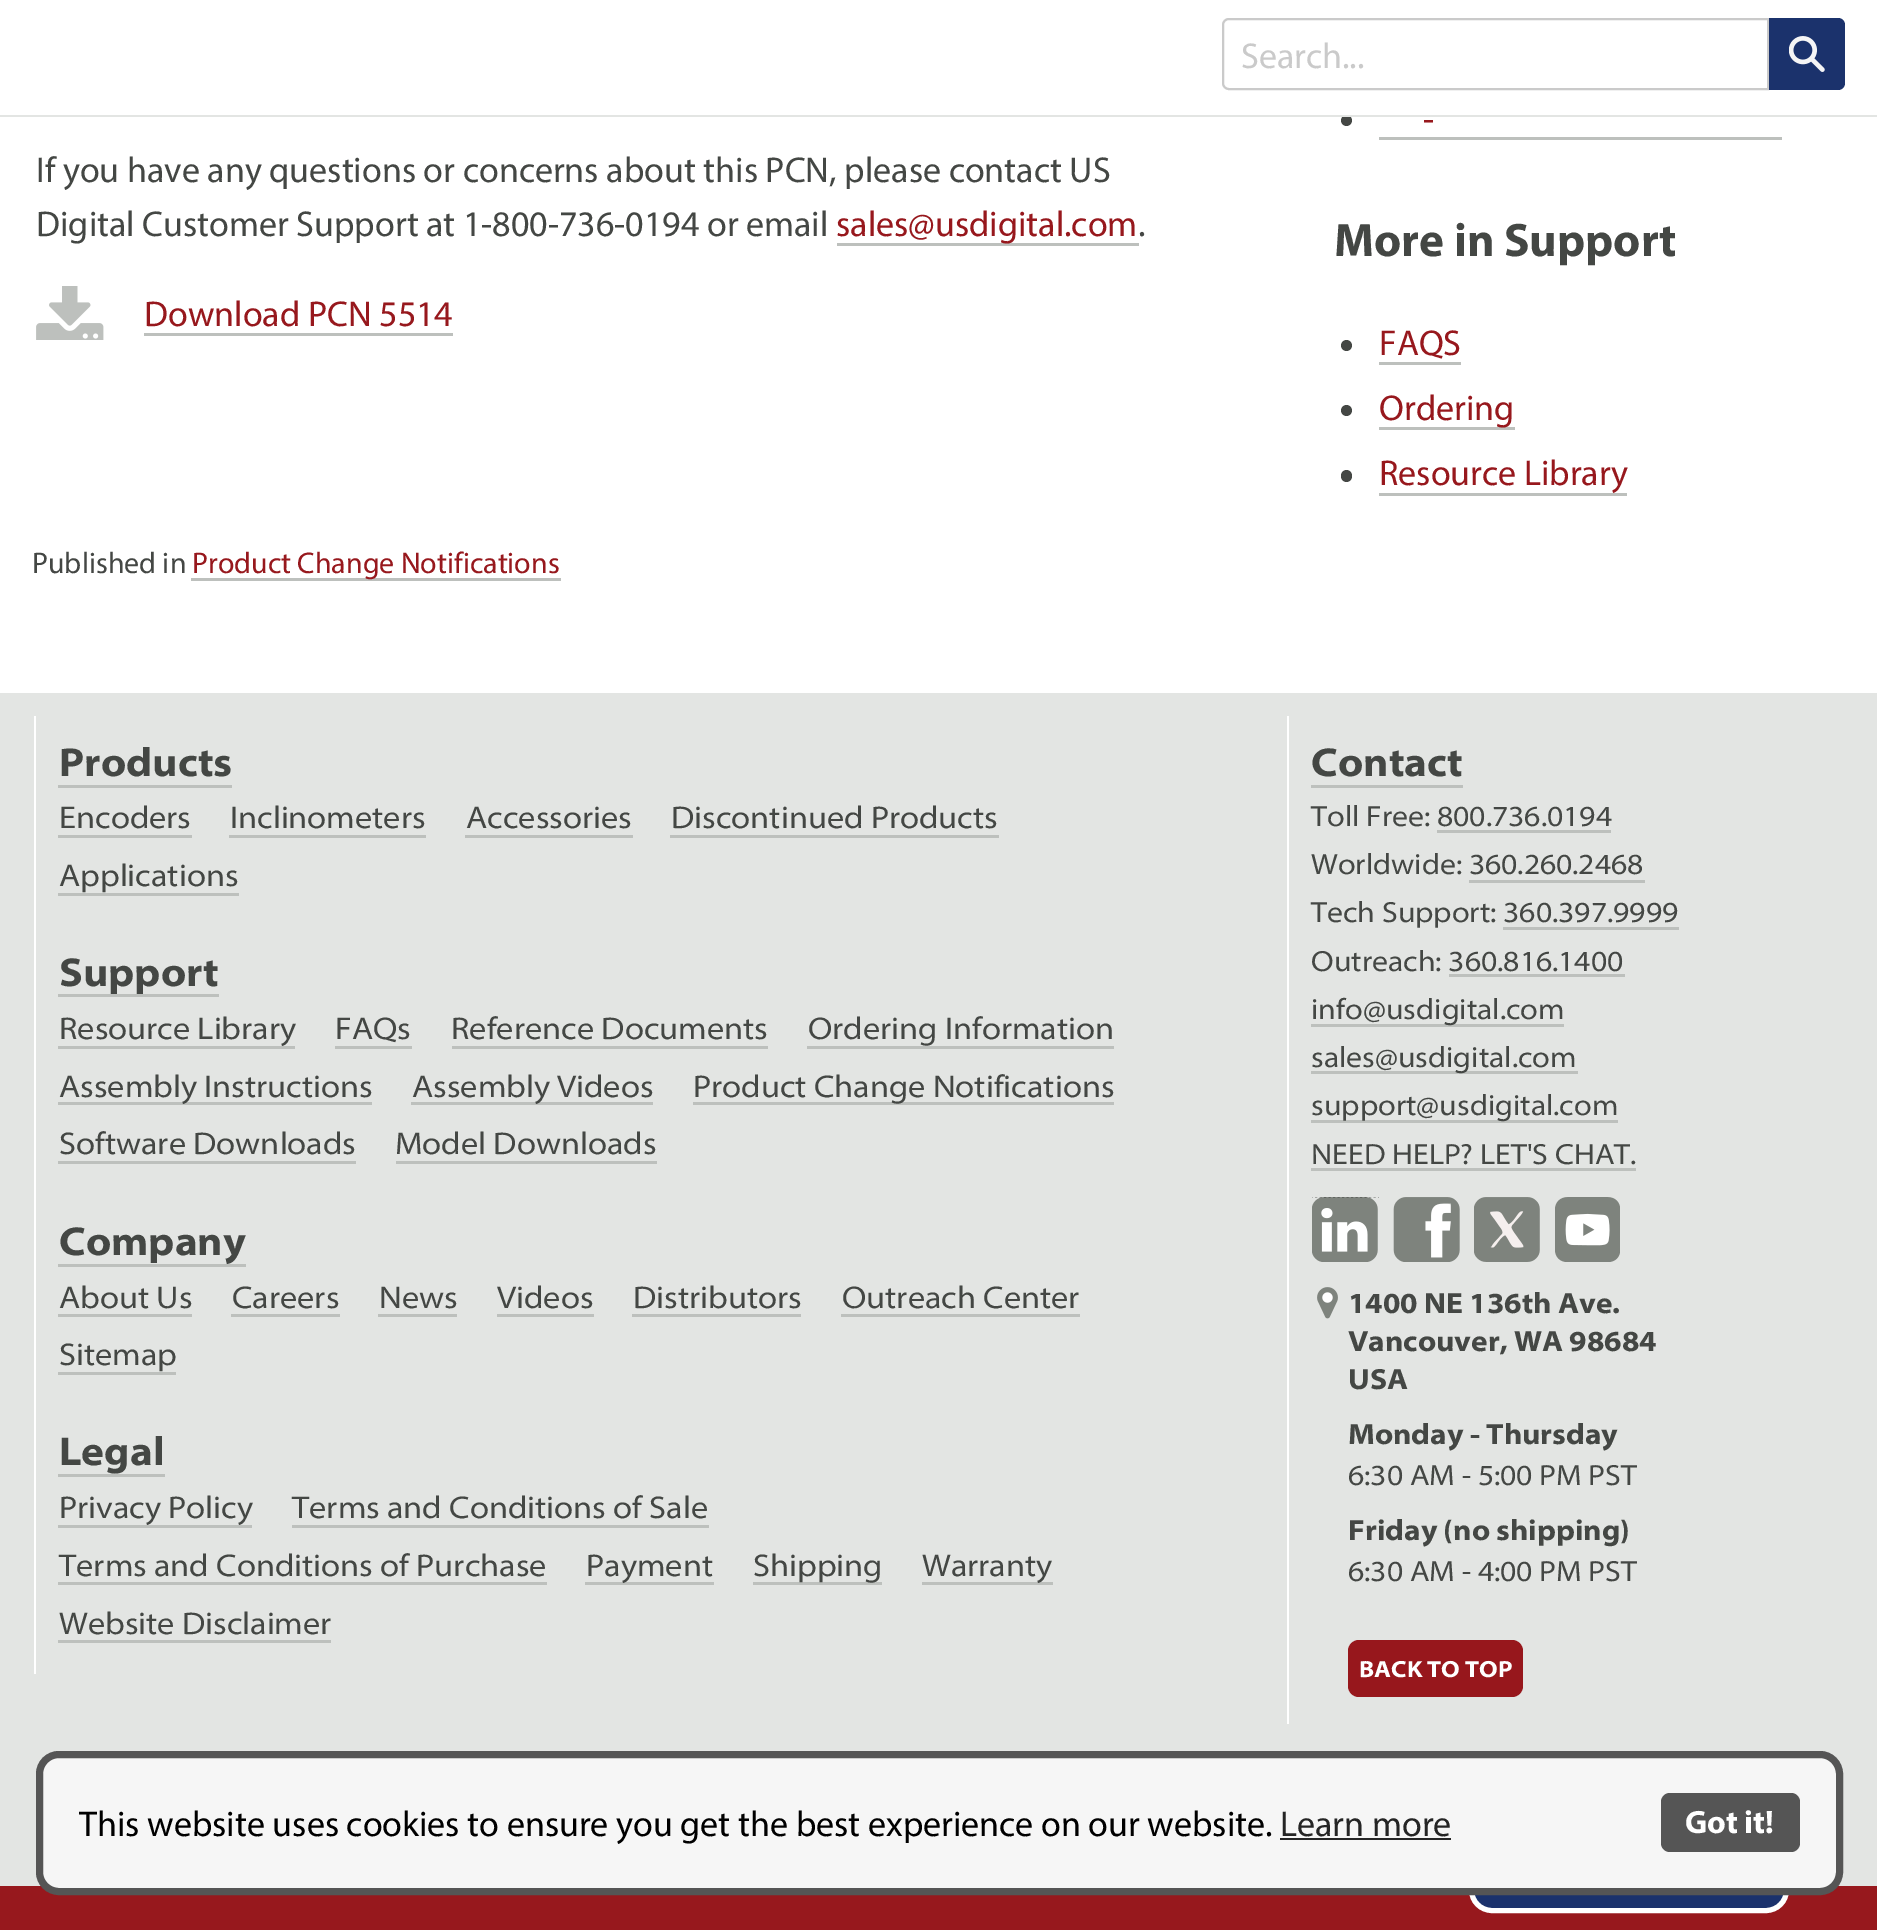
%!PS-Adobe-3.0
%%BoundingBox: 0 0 1877 1930
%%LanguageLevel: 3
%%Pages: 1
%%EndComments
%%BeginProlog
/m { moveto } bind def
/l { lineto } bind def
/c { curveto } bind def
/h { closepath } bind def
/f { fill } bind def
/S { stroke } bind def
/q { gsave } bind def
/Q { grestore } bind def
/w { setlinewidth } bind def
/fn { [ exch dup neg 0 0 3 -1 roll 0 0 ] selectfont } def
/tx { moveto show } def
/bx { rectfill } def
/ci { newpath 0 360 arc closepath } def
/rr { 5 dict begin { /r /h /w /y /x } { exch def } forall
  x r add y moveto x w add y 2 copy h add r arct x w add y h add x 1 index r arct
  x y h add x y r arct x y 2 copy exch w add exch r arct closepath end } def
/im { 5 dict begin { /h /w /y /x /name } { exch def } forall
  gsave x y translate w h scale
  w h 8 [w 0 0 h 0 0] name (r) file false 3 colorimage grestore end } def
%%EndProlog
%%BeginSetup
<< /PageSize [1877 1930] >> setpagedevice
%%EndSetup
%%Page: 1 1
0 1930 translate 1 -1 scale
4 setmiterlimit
1 setgray
0 0 1877 1930 bx
0.267 0.278 0.267 setrgbcolor
1346.5 120.5 5.5 ci f
0.89 0.898 0.89 setrgbcolor
0 115 1877 2 bx
0.792 setgray
2 w
1229 19 m 1768 19 l 1768 89 l 1229 89 l 1225.5 89 1223 86.5 1223 83 c 1223 25 l 1223 21.5 1225.5 19 1229 19 c h S
/Myriad-Regular 36 fn
(Search...) 1241 68 tx
0.106 0.196 0.424 setrgbcolor
1769 18 m 1838 18 l 1842 18 1845 21 1845 25 c 1845 83 l 1845 87 1842 90 1838 90 c 1769 90 l h f
(image0.raw) 1789 36 36 36 im
0.267 0.278 0.267 setrgbcolor
(If you have any questions or concerns about this PCN, please contact US) 36 182 tx
(Digital Customer Support at 1-800-736-0194 or email) 36 236 tx
0.741 0.753 0.741 setrgbcolor
837 243 302 3 bx
0.592 0.094 0.114 setrgbcolor
(sales@usdigital.com) 836 236 tx
0.267 0.278 0.267 setrgbcolor
(.) 1138 236 tx
(image1.raw) 36 286 68 54 im
0.592 0.094 0.114 setrgbcolor
(Download PCN 5514) 144 326 tx
0.741 0.753 0.741 setrgbcolor
144 333 309 3 bx
0.592 0.094 0.114 setrgbcolor
(-) 1423 131 tx
0.741 0.753 0.741 setrgbcolor
1379 137 403 3 bx
/Myriad-Bold 47.25 fn
0.267 0.278 0.267 setrgbcolor
(More in Support) 1334 256 tx
1346.5 345.5 5.5 ci f
/Myriad-Regular 36 fn
0.592 0.094 0.114 setrgbcolor
(FAQS) 1379 355 tx
0.741 0.753 0.741 setrgbcolor
1379 362 82 3 bx
0.267 0.278 0.267 setrgbcolor
1346.5 410.5 5.5 ci f
0.741 0.753 0.741 setrgbcolor
1379 427 136 3 bx
0.592 0.094 0.114 setrgbcolor
(Ordering) 1379 420 tx
0.267 0.278 0.267 setrgbcolor
1341 470 11 12 5.5 rr f
0.592 0.094 0.114 setrgbcolor
(Resource Library) 1379 485 tx
0.741 0.753 0.741 setrgbcolor
1379 493 248 3 bx
/Myriad-Regular 30 fn
0.267 0.278 0.267 setrgbcolor
(Published in) 32 573 tx
0.741 0.753 0.741 setrgbcolor
191 578 370 3 bx
0.592 0.094 0.114 setrgbcolor
(Product Change Notifications) 192 573 tx
0.89 0.898 0.89 setrgbcolor
0 693 1877 1193 bx
0.592 0.094 0.114 setrgbcolor
0 1886 1877 44 bx
1 setgray
34 716 2 958 bx
/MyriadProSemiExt-Bold 40.5 fn
0.267 0.278 0.267 setrgbcolor
(Products) 59 776 tx
0.741 0.753 0.741 setrgbcolor
58 785 174 3 bx
/MyriadProSemiExt-Regular 31.5 fn
0.267 0.278 0.267 setrgbcolor
(Encoders) 59 828 tx
0.741 0.753 0.741 setrgbcolor
58 835 134 3 bx
0.267 0.278 0.267 setrgbcolor
(Inclinometers) 230 828 tx
0.741 0.753 0.741 setrgbcolor
229 835 197 3 bx
0.267 0.278 0.267 setrgbcolor
(Accessories) 466 828 tx
0.741 0.753 0.741 setrgbcolor
465 835 168 3 bx
0.267 0.278 0.267 setrgbcolor
(Discontinued Products) 671 828 tx
0.741 0.753 0.741 setrgbcolor
670 835 329 3 bx
0.267 0.278 0.267 setrgbcolor
(Applications) 59 886 tx
0.741 0.753 0.741 setrgbcolor
58 893 181 3 bx
58 994 161 3 bx
/MyriadProSemiExt-Bold 40.5 fn
0.267 0.278 0.267 setrgbcolor
(Support) 59 986 tx
/MyriadProSemiExt-Regular 31.5 fn
(Resource Library) 59 1039 tx
0.741 0.753 0.741 setrgbcolor
58 1046 237 3 bx
0.267 0.278 0.267 setrgbcolor
(FAQs) 335 1039 tx
0.741 0.753 0.741 setrgbcolor
335 1046 77 3 bx
0.267 0.278 0.267 setrgbcolor
(Reference Documents) 451 1039 tx
0.741 0.753 0.741 setrgbcolor
452 1046 316 3 bx
0.267 0.278 0.267 setrgbcolor
(Ordering Information) 808 1039 tx
0.741 0.753 0.741 setrgbcolor
807 1046 307 3 bx
58 1102 314 3 bx
0.267 0.278 0.267 setrgbcolor
(Assembly Instructions) 59 1097 tx
0.741 0.753 0.741 setrgbcolor
411 1102 242 3 bx
0.267 0.278 0.267 setrgbcolor
(Assembly Videos) 412 1097 tx
0.741 0.753 0.741 setrgbcolor
693 1102 421 3 bx
0.267 0.278 0.267 setrgbcolor
(Product Change Notifications) 693 1097 tx
(Software Downloads) 59 1154 tx
0.741 0.753 0.741 setrgbcolor
58 1161 298 3 bx
0.267 0.278 0.267 setrgbcolor
(Model Downloads) 395 1154 tx
0.741 0.753 0.741 setrgbcolor
396 1161 261 3 bx
/MyriadProSemiExt-Bold 40.5 fn
0.267 0.278 0.267 setrgbcolor
(Company) 59 1255 tx
0.741 0.753 0.741 setrgbcolor
58 1264 188 3 bx
/MyriadProSemiExt-Regular 31.5 fn
0.267 0.278 0.267 setrgbcolor
(About Us) 59 1308 tx
0.741 0.753 0.741 setrgbcolor
58 1314 134 3 bx
0.267 0.278 0.267 setrgbcolor
(Careers) 232 1308 tx
0.741 0.753 0.741 setrgbcolor
231 1314 109 3 bx
0.267 0.278 0.267 setrgbcolor
(News) 379 1308 tx
0.741 0.753 0.741 setrgbcolor
378 1314 79 3 bx
0.267 0.278 0.267 setrgbcolor
(Videos) 497 1308 tx
0.741 0.753 0.741 setrgbcolor
497 1314 97 3 bx
0.267 0.278 0.267 setrgbcolor
(Distributors) 633 1308 tx
0.741 0.753 0.741 setrgbcolor
632 1314 169 3 bx
0.267 0.278 0.267 setrgbcolor
(Outreach Center) 842 1308 tx
0.741 0.753 0.741 setrgbcolor
841 1314 239 3 bx
0.267 0.278 0.267 setrgbcolor
(Sitemap) 59 1365 tx
0.741 0.753 0.741 setrgbcolor
58 1372 118 3 bx
/MyriadProSemiExt-Bold 40.5 fn
0.267 0.278 0.267 setrgbcolor
(Legal) 59 1465 tx
0.741 0.753 0.741 setrgbcolor
58 1474 107 3 bx
/MyriadProSemiExt-Regular 31.5 fn
0.267 0.278 0.267 setrgbcolor
(Privacy Policy) 59 1518 tx
0.741 0.753 0.741 setrgbcolor
58 1525 194 3 bx
0.267 0.278 0.267 setrgbcolor
(Terms and Conditions of Sale) 292 1518 tx
0.741 0.753 0.741 setrgbcolor
292 1525 417 3 bx
0.267 0.278 0.267 setrgbcolor
(Terms and Conditions of Purchase) 59 1576 tx
0.741 0.753 0.741 setrgbcolor
58 1582 489 3 bx
585 1582 129 3 bx
0.267 0.278 0.267 setrgbcolor
(Payment) 586 1576 tx
0.741 0.753 0.741 setrgbcolor
753 1582 129 3 bx
0.267 0.278 0.267 setrgbcolor
(Shipping) 753 1576 tx
0.741 0.753 0.741 setrgbcolor
922 1582 131 3 bx
0.267 0.278 0.267 setrgbcolor
(Warranty) 922 1576 tx
(Website Disclaimer) 59 1634 tx
0.741 0.753 0.741 setrgbcolor
58 1640 273 3 bx
1 setgray
1287 716 2 1008 bx
/MyriadProSemiExt-Bold 40.5 fn
0.267 0.278 0.267 setrgbcolor
(Contact) 1311 776 tx
0.741 0.753 0.741 setrgbcolor
1311 785 152 3 bx
/MyriadProSemiExt-Regular 29.25 fn
0.267 0.278 0.267 setrgbcolor
(Toll Free: 800.736.0194) 1311 826 tx
0.741 0.753 0.741 setrgbcolor
1437 830 174 3 bx
0.267 0.278 0.267 setrgbcolor
(Worldwide: 360.260.2468) 1311 874 tx
0.741 0.753 0.741 setrgbcolor
1469 880 176 3 bx
0.267 0.278 0.267 setrgbcolor
(Tech Support: 360.397.9999) 1311 922 tx
0.741 0.753 0.741 setrgbcolor
1503 927 176 3 bx
0.267 0.278 0.267 setrgbcolor
(Outreach: 360.816.1400) 1311 971 tx
0.741 0.753 0.741 setrgbcolor
1449 974 176 3 bx
1311 1024 253 3 bx
0.267 0.278 0.267 setrgbcolor
(info@usdigital.com) 1311 1019 tx
0.741 0.753 0.741 setrgbcolor
1311 1071 267 3 bx
0.267 0.278 0.267 setrgbcolor
(sales@usdigital.com) 1311 1067 tx
0.741 0.753 0.741 setrgbcolor
1311 1120 307 3 bx
0.267 0.278 0.267 setrgbcolor
(support@usdigital.com) 1311 1115 tx
(NEED HELP? LET'S CHAT.) 1311 1164 tx
0.741 0.753 0.741 setrgbcolor
1311 1168 325 3 bx
(image2.raw) 1312 1197 66 65 im
q
1312 1197 67 65 rectclip
0 setgray
2.2 w
[2.25 2.25] 0 setdash
1310.5 1196 m 1380.5 1196 l 1380.5 1263.5 l 1310.5 1263.5 l h S
Q
(image3.raw) 1393 1197 67 65 im
(image4.raw) 1474 1197 66 65 im
(image5.raw) 1555 1197 65 65 im
(image6.raw) 1317 1287 21 32 im
/MyriadProSemiExt-Bold 29.25 fn
0.267 0.278 0.267 setrgbcolor
(1400 NE 136th Ave.) 1348 1313 tx
(Vancouver, WA 98684) 1348 1351 tx
(USA) 1348 1389 tx
(Monday - Thursday) 1348 1444 tx
/MyriadProSemiExt-Regular 29.25 fn
(6:30 AM - 5:00 PM PST) 1348 1485 tx
/MyriadProSemiExt-Bold 29.25 fn
(Friday \(no shipping\)) 1348 1540 tx
/MyriadProSemiExt-Regular 29.25 fn
(6:30 AM - 4:00 PM PST) 1348 1581 tx
0.592 0.09 0.11 setrgbcolor
1348 1640 175 57 11 rr f
/MyriadProSemiExt-Bold 23.5 fn
1 setgray
(BACK TO TOP) 1359 1677 tx
0.106 0.196 0.424 setrgbcolor
1471.5 1811.5 315 99 20.5 rr q f Q
1 setgray
5 w
S
0.965 setgray
39.5 1754.5 1800 137 19.5 rr q f Q
0.333 setgray
7 w
S
/Myriad-Regular 36 fn
0 setgray
(This website uses cookies to ensure you get the best experience on our website.) 79 1836 tx
0.145 setgray
(Learn more) 1280 1836 tx
1280 1838 171 2 bx
0.333 setgray
1661 1793 139 59 9 rr f
/Myriad-Bold 32.5 fn
1 setgray
(Got it!) 1685 1833 tx
showpage
%%EOF
